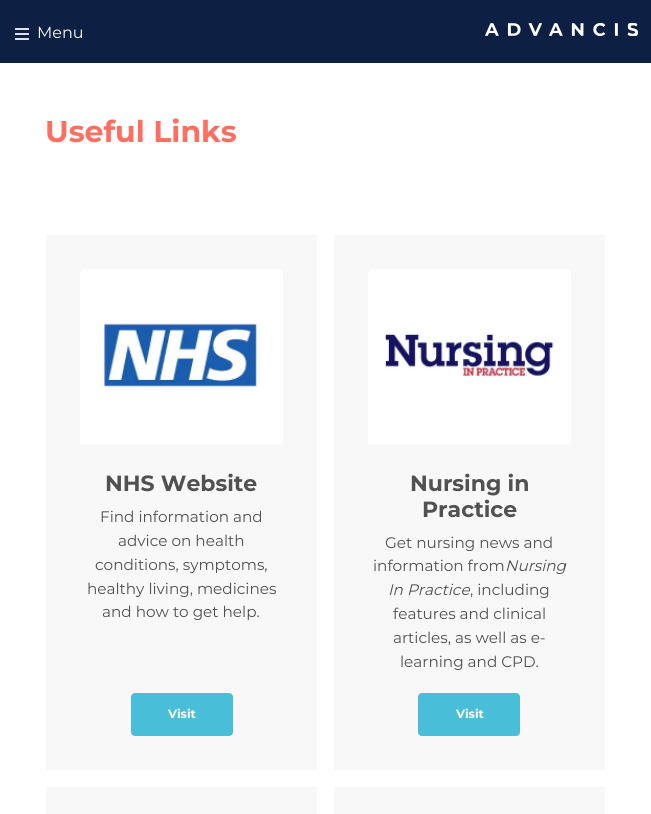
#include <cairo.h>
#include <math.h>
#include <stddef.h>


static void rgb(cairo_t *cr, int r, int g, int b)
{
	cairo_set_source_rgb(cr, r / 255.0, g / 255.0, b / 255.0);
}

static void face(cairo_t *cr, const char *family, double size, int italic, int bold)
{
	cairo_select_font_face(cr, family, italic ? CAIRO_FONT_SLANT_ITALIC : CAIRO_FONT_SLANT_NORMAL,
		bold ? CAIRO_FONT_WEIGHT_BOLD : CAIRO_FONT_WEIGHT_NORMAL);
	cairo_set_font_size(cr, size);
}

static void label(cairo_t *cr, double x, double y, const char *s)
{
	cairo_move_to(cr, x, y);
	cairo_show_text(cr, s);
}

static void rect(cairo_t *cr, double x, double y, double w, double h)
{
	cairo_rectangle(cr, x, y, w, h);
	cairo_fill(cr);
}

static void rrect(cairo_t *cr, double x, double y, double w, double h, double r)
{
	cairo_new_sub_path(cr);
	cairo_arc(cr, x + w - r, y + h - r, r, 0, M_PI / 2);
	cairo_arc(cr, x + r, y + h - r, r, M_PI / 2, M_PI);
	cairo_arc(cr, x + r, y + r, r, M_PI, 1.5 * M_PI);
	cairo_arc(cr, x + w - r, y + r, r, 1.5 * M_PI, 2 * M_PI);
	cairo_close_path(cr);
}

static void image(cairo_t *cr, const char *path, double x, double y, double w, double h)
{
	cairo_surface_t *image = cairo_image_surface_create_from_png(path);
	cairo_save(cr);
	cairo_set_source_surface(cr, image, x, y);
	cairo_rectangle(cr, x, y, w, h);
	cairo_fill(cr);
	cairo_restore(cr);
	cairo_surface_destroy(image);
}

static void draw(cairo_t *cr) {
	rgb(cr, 255, 255, 255);
	cairo_paint(cr);
	rgb(cr, 13, 32, 68);
	rect(cr, 0, 0, 651, 63);
	image(cr, "image0.png", 15, 28, 14, 12);
	face(cr, "Montserrat", 16, 0, 0);
	rgb(cr, 255, 255, 255);
	label(cr, 37, 38, "Menu");
	image(cr, "image1.png", 485, 23, 153, 13);
	face(cr, "Montserrat", 30, 0, 1);
	rgb(cr, 255, 111, 97);
	label(cr, 45, 142, "Useful Links");
	rgb(cr, 248, 248, 248);
	rect(cr, 46, 235, 271, 535);
	image(cr, "image2.png", 80, 269, 203, 176);
	face(cr, "Montserrat", 22, 0, 1);
	rgb(cr, 81, 81, 81);
	label(cr, 105, 491, "NHS Website");
	face(cr, "Montserrat", 15.25, 0, 0);
	label(cr, 100, 522, "Find information and");
	label(cr, 118, 546, "advice on health");
	label(cr, 95, 570, "conditions, symptoms,");
	label(cr, 87, 594, "healthy living, medicines");
	label(cr, 102, 617, "and how to get help.");
	rgb(cr, 72, 190, 216);
	rrect(cr, 131, 693, 102, 43, 4);
	cairo_fill(cr);
	face(cr, "Montserrat", 12, 0, 1);
	rgb(cr, 255, 255, 255);
	label(cr, 168, 718, "Visit");
	rgb(cr, 248, 248, 248);
	rect(cr, 334, 235, 271, 535);
	image(cr, "image3.png", 368, 269, 203, 176);
	face(cr, "Montserrat", 22, 0, 1);
	rgb(cr, 81, 81, 81);
	label(cr, 410, 491, "Nursing in");
	label(cr, 422, 517, "Practice");
	face(cr, "Montserrat", 15.25, 0, 0);
	label(cr, 385, 548, "Get nursing news and");
	label(cr, 373, 571, "information from");
	face(cr, "Montserrat", 15.25, 1, 0);
	label(cr, 505, 571, "Nursing");
	label(cr, 388, 595, "In Practice");
	face(cr, "Montserrat", 15.25, 0, 0);
	label(cr, 470, 595, ", including");
	label(cr, 393, 619, "features and clinical");
	label(cr, 393, 643, "articles, as well as e-");
	label(cr, 400, 667, "learning and CPD.");
	rgb(cr, 72, 190, 216);
	rrect(cr, 418, 693, 102, 43, 4);
	cairo_fill(cr);
	face(cr, "Montserrat", 12, 0, 1);
	rgb(cr, 255, 255, 255);
	label(cr, 456, 718, "Visit");
	rgb(cr, 248, 248, 248);
	rect(cr, 46, 787, 271, 27);
	rect(cr, 334, 787, 271, 27);
}

int main(void) {
	cairo_surface_t *surface = cairo_image_surface_create(CAIRO_FORMAT_RGB24, 651, 814);
	cairo_t *cr = cairo_create(surface);
	cairo_font_options_t *options = cairo_font_options_create();
	cairo_font_options_set_hint_metrics(options, CAIRO_HINT_METRICS_OFF);
	cairo_font_options_set_hint_style(options, CAIRO_HINT_STYLE_NONE);
	cairo_set_font_options(cr, options);
	cairo_set_miter_limit(cr, 4);
	draw(cr);
	cairo_surface_write_to_png(surface, "render.png");
	cairo_font_options_destroy(options);
	cairo_destroy(cr);
	cairo_surface_destroy(surface);
	return 0;
}
